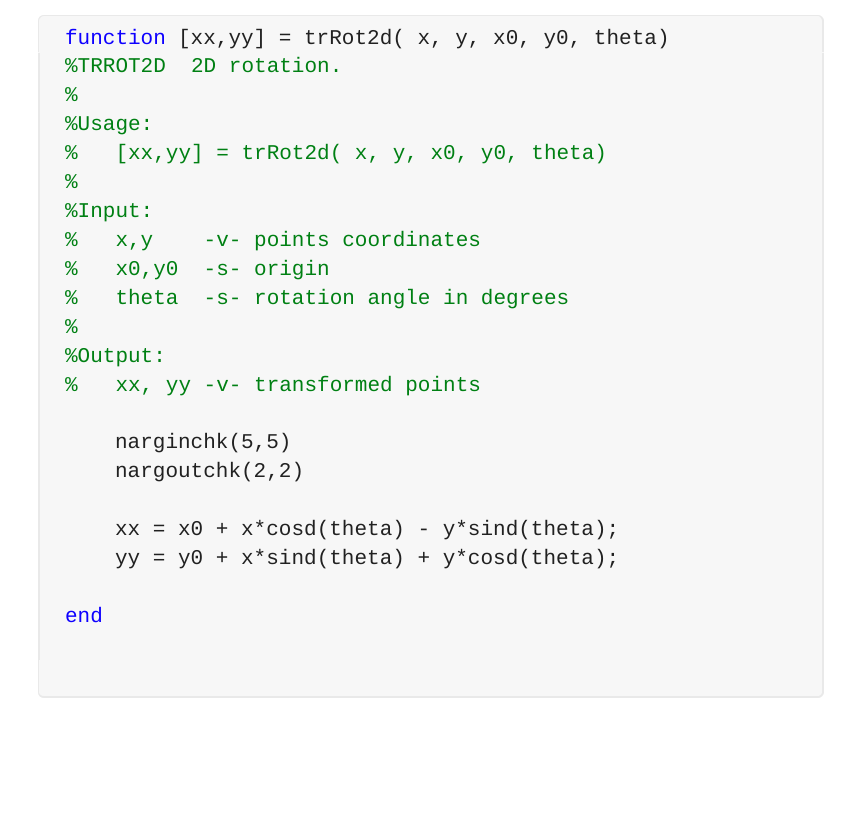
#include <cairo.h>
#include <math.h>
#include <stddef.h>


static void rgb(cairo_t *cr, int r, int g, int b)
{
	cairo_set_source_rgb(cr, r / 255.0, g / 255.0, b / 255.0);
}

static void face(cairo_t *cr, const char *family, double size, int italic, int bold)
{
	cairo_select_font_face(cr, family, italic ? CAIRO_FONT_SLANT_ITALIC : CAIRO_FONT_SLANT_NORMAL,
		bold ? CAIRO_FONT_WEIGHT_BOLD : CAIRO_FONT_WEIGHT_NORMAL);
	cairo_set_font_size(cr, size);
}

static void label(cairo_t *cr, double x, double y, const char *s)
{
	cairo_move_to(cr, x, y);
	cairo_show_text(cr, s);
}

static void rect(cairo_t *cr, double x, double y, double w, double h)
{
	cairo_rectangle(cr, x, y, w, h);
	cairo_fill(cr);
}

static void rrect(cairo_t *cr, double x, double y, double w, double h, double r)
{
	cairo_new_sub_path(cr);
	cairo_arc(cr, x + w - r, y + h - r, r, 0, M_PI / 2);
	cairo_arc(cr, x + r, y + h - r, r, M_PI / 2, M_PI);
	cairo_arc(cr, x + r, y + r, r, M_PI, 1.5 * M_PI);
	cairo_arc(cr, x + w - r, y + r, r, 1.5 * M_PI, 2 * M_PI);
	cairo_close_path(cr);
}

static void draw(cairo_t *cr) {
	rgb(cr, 255, 255, 255);
	cairo_paint(cr);
	rgb(cr, 247, 247, 247);
	rrect(cr, 38, 15, 786, 683, 6);
	cairo_fill(cr);
	rgb(cr, 233, 233, 233);
	cairo_set_fill_rule(cr, CAIRO_FILL_RULE_EVEN_ODD);
	cairo_new_path(cr);
	cairo_move_to(cr, 44, 15);
	cairo_line_to(cr, 818, 15);
	cairo_curve_to(cr, 821, 15, 824, 18, 824, 21);
	cairo_line_to(cr, 824, 52);
	cairo_line_to(cr, 38, 52);
	cairo_line_to(cr, 38, 21);
	cairo_curve_to(cr, 38, 18, 40, 15, 44, 15);
	cairo_close_path(cr);
	cairo_move_to(cr, 44, 16);
	cairo_line_to(cr, 818, 16);
	cairo_curve_to(cr, 820, 16, 822, 19, 822, 21);
	cairo_line_to(cr, 822, 52);
	cairo_line_to(cr, 39, 52);
	cairo_line_to(cr, 39, 21);
	cairo_curve_to(cr, 39, 19, 41, 16, 44, 16);
	cairo_close_path(cr);
	cairo_fill(cr);
	face(cr, "Liberation Mono", 21, 0, 0);
	rgb(cr, 14, 0, 255);
	label(cr, 65, 44, "function");
	rgb(cr, 33, 33, 33);
	label(cr, 178, 44, "[xx,yy] = trRot2d( x, y, x0, y0, theta)");
	rgb(cr, 233, 233, 233);
	rect(cr, 822, 53, 2, 607);
	rect(cr, 38, 53, 2, 607);
	rgb(cr, 0, 128, 19);
	label(cr, 65, 72, "%TRROT2D  2D rotation.");
	label(cr, 65, 101, "%");
	label(cr, 65, 130, "%Usage:");
	label(cr, 65, 159, "%   [xx,yy] = trRot2d( x, y, x0, y0, theta)");
	label(cr, 65, 188, "%");
	label(cr, 65, 217, "%Input:");
	label(cr, 65, 246, "%   x,y    -v- points coordinates");
	label(cr, 65, 275, "%   x0,y0  -s- origin");
	label(cr, 65, 304, "%   theta  -s- rotation angle in degrees");
	label(cr, 65, 333, "%");
	label(cr, 65, 362, "%Output:");
	label(cr, 65, 391, "%   xx, yy -v- transformed points");
	rgb(cr, 33, 33, 33);
	label(cr, 115, 448, "narginchk(5,5)");
	label(cr, 115, 477, "nargoutchk(2,2)");
	label(cr, 115, 535, "xx = x0 + x*cosd(theta) - y*sind(theta);");
	label(cr, 115, 564, "yy = y0 + x*sind(theta) + y*cosd(theta);");
	rgb(cr, 14, 0, 255);
	label(cr, 65, 622, "end");
	rgb(cr, 233, 233, 233);
	cairo_new_path(cr);
	cairo_move_to(cr, 38, 660);
	cairo_line_to(cr, 824, 660);
	cairo_line_to(cr, 824, 692);
	cairo_curve_to(cr, 824, 695, 821, 698, 818, 698);
	cairo_line_to(cr, 44, 698);
	cairo_curve_to(cr, 40, 698, 38, 695, 38, 692);
	cairo_close_path(cr);
	cairo_move_to(cr, 39, 660);
	cairo_line_to(cr, 822, 660);
	cairo_line_to(cr, 822, 692);
	cairo_curve_to(cr, 822, 694, 820, 696, 818, 696);
	cairo_line_to(cr, 44, 696);
	cairo_curve_to(cr, 41, 696, 39, 694, 39, 692);
	cairo_close_path(cr);
	cairo_fill(cr);
}

int main(void) {
	cairo_surface_t *surface = cairo_image_surface_create(CAIRO_FORMAT_RGB24, 842, 830);
	cairo_t *cr = cairo_create(surface);
	cairo_font_options_t *options = cairo_font_options_create();
	cairo_font_options_set_hint_metrics(options, CAIRO_HINT_METRICS_OFF);
	cairo_font_options_set_hint_style(options, CAIRO_HINT_STYLE_NONE);
	cairo_set_font_options(cr, options);
	cairo_set_miter_limit(cr, 4);
	draw(cr);
	cairo_surface_write_to_png(surface, "render.png");
	cairo_font_options_destroy(options);
	cairo_destroy(cr);
	cairo_surface_destroy(surface);
	return 0;
}
